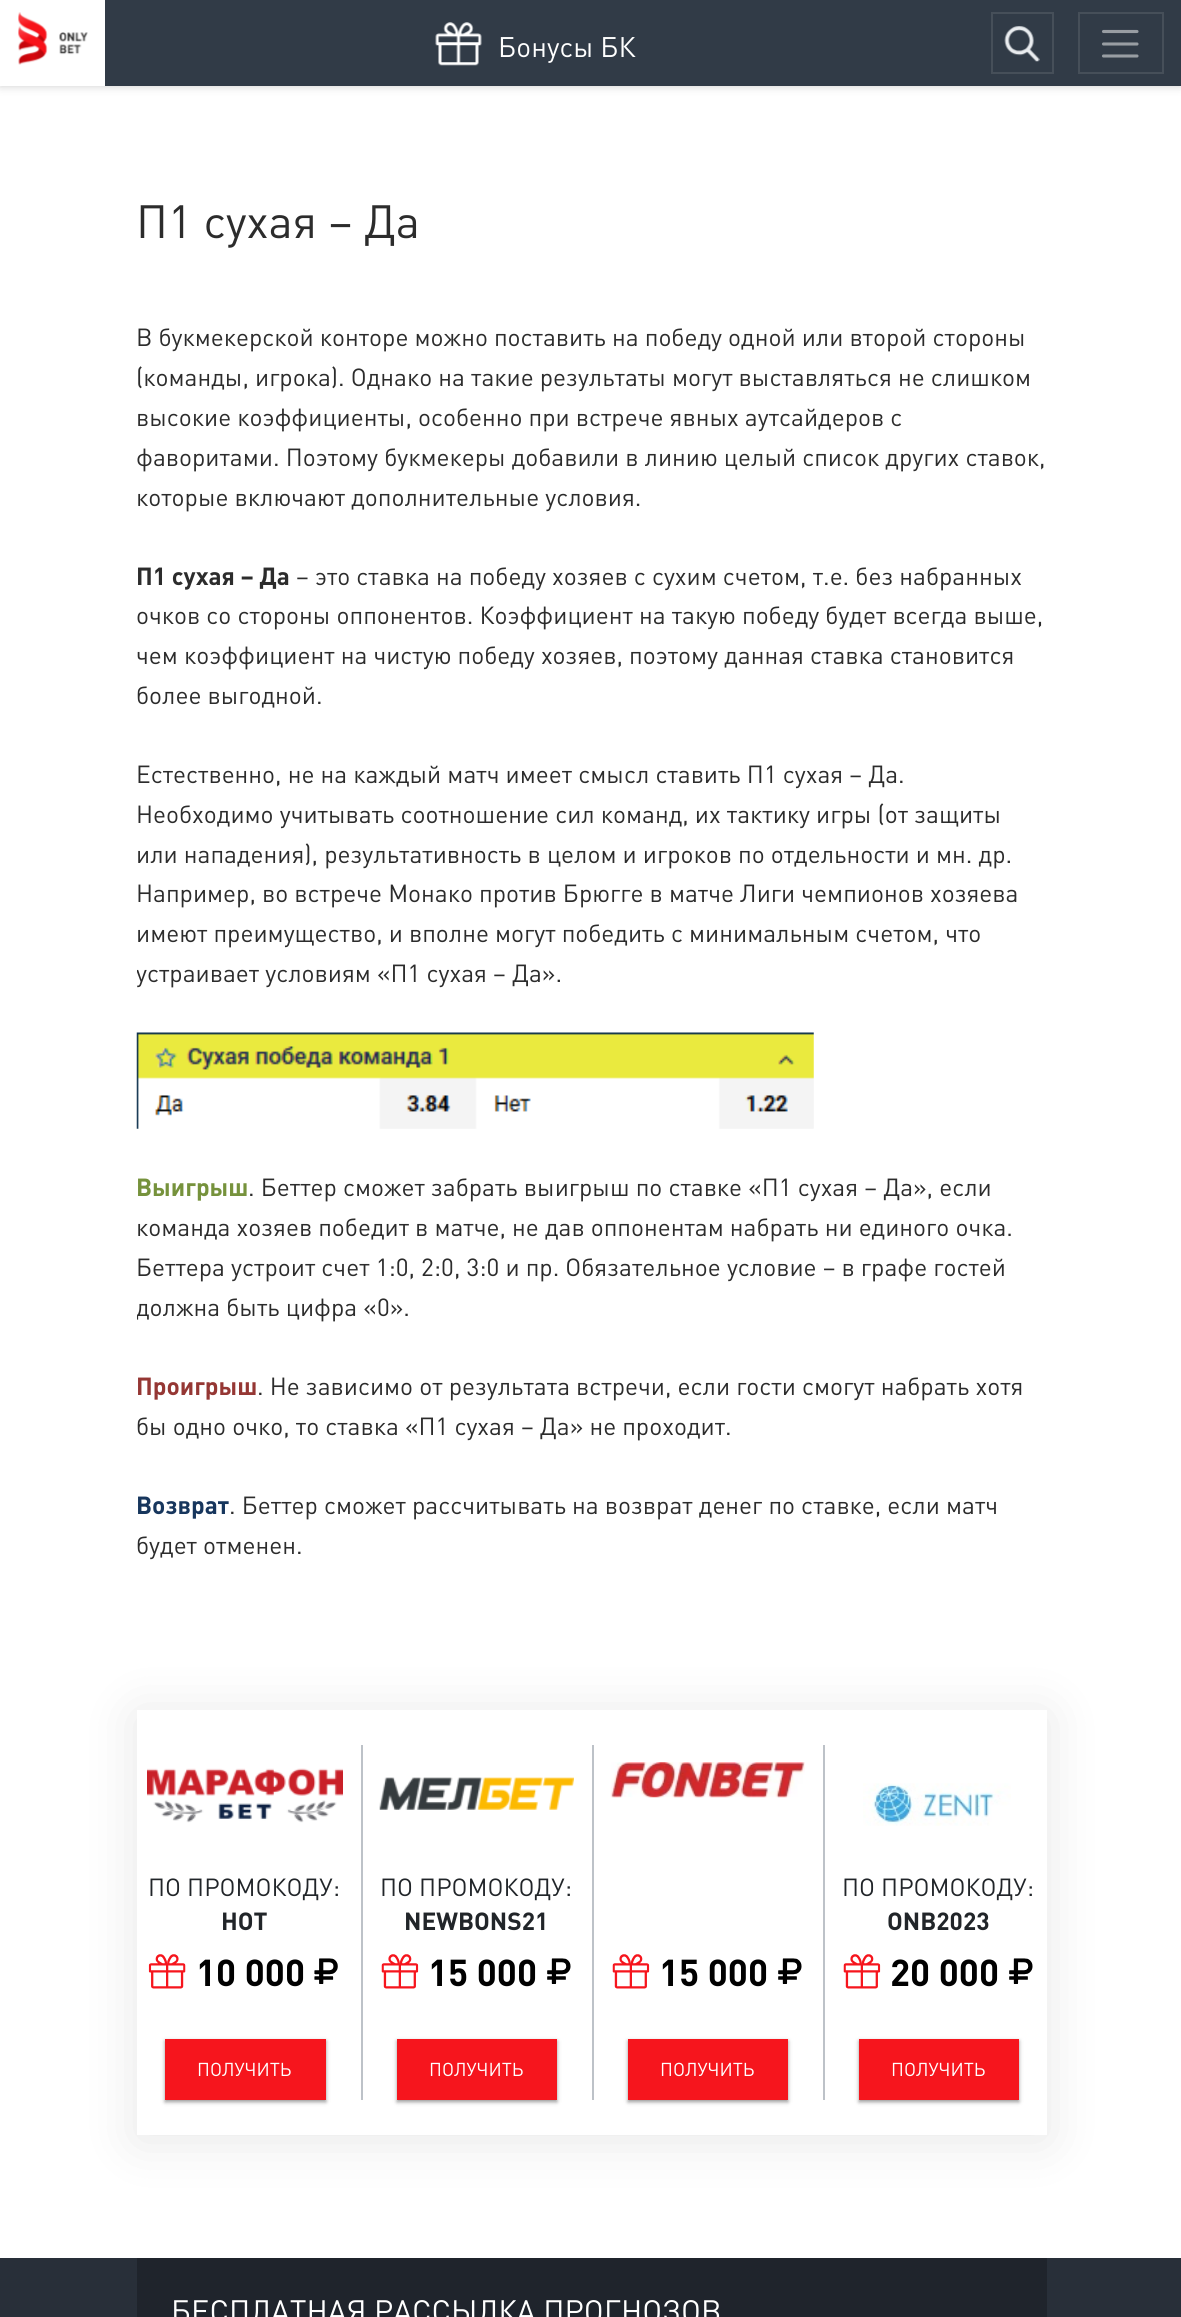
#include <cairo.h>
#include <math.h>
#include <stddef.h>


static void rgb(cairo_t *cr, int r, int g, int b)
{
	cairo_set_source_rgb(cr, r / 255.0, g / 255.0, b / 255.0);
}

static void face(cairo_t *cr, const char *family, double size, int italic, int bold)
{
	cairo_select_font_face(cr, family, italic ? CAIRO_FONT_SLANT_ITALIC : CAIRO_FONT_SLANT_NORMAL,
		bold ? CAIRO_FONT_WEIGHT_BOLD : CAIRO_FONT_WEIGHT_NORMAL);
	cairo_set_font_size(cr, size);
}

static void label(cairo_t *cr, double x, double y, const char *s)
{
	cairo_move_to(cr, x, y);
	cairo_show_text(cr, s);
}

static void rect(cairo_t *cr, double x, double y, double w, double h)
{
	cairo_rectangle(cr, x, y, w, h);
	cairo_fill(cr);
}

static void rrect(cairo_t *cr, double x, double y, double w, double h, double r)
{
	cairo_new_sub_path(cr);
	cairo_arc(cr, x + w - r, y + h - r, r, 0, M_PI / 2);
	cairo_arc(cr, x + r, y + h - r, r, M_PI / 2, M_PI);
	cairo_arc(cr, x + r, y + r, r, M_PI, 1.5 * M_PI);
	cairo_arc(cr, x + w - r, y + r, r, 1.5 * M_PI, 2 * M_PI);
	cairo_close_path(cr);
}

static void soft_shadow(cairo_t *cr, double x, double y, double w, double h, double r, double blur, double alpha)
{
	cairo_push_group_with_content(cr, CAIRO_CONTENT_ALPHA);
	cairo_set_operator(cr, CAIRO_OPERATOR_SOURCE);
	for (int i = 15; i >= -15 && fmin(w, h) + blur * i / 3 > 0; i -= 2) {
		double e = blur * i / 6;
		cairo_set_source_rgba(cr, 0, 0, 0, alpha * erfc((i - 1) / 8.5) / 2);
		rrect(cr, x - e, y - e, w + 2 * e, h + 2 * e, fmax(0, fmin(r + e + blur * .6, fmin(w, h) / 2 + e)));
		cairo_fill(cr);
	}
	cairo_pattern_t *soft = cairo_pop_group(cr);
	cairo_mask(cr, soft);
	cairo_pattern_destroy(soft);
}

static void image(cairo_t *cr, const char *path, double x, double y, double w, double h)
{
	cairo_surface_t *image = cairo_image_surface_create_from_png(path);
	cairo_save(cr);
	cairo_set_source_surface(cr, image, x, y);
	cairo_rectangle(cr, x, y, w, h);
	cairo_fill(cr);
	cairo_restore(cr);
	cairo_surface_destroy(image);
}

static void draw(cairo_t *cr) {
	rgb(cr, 255, 255, 255);
	cairo_paint(cr);
	rgb(cr, 0, 0, 0);
	soft_shadow(cr, 0, 0, 1181, 86, 0, 4.5, 0.2);
	rgb(cr, 49, 59, 71);
	rect(cr, 105, 0, 1076, 86);
	rgb(cr, 255, 255, 255);
	rect(cr, 0, 0, 105, 86);
	image(cr, "image0.png", 18, 12, 70, 53);
	image(cr, "image1.png", 435, 22, 47, 44);
	face(cr, "DIN", 28, 0, 0);
	label(cr, 498, 57, "Бонусы БК");
	cairo_rectangle(cr, 992, 13, 61, 60);
	rgb(cr, 70, 79, 89);
	cairo_stroke(cr);
	image(cr, "image2.png", 1004, 26, 36, 36);
	cairo_rectangle(cr, 1079, 13, 84, 60);
	cairo_stroke(cr);
	cairo_new_path(cr);
	cairo_move_to(cr, 1103.5, 31.5);
	cairo_line_to(cr, 1137, 31.5);
	cairo_move_to(cr, 1103.5, 44);
	cairo_line_to(cr, 1137, 44);
	cairo_move_to(cr, 1103.5, 56);
	cairo_line_to(cr, 1137, 56);
	rgb(cr, 152, 157, 163);
	cairo_set_line_width(cr, 3.1);
	cairo_set_line_cap(cr, CAIRO_LINE_CAP_ROUND);
	cairo_stroke(cr);
	face(cr, "DIN", 46, 0, 0);
	rgb(cr, 44, 44, 44);
	label(cr, 136, 238, "П1 сухая – Да");
	face(cr, "DIN", 24.5, 0, 0);
	label(cr, 136, 346, "В букмекерской конторе можно поставить на победу одной или второй стороны");
	label(cr, 136, 386, "(команды, игрока). Однако на такие результаты могут выставляться не слишком");
	label(cr, 136, 426, "высокие коэффициенты, особенно при встрече явных аутсайдеров с");
	label(cr, 136, 466, "фаворитами. Поэтому букмекеры добавили в линию целый список других ставок,");
	label(cr, 136, 506, "которые включают дополнительные условия.");
	face(cr, "DIN", 24.5, 0, 1);
	label(cr, 136, 585, "П1 сухая – Да");
	face(cr, "DIN", 24.5, 0, 0);
	label(cr, 296, 585, "– это ставка на победу хозяев с сухим счетом, т.е. без набранных");
	label(cr, 136, 624, "очков со стороны оппонентов. Коэффициент на такую победу будет всегда выше,");
	label(cr, 136, 664, "чем коэффициент на чистую победу хозяев, поэтому данная ставка становится");
	label(cr, 136, 704, "более выгодной.");
	label(cr, 136, 783, "Естественно, не на каждый матч имеет смысл ставить П1 сухая – Да.");
	label(cr, 136, 823, "Необходимо учитывать соотношение сил команд, их тактику игры (от защиты");
	label(cr, 136, 863, "или нападения), результативность в целом и игроков по отдельности и мн. др.");
	label(cr, 136, 902, "Например, во встрече Монако против Брюгге в матче Лиги чемпионов хозяева");
	label(cr, 136, 942, "имеют преимущество, и вполне могут победить с минимальным счетом, что");
	cairo_save(cr);
	cairo_rectangle(cr, 137, 319, 910, 1286);
	cairo_clip(cr);
	label(cr, 136, 982, "устраивает условиям «П1 сухая – Да».");
	cairo_restore(cr);
	image(cr, "image3.png", 136, 1032, 678, 97);
	face(cr, "DIN", 24.5, 0, 1);
	rgb(cr, 118, 146, 60);
	label(cr, 136, 1196, "Выигрыш");
	face(cr, "DIN", 24.5, 0, 0);
	rgb(cr, 44, 44, 44);
	label(cr, 248, 1196, ". Беттер сможет забрать выигрыш по ставке «П1 сухая – Да», если");
	label(cr, 136, 1236, "команда хозяев победит в матче, не дав оппонентам набрать ни единого очка.");
	label(cr, 136, 1276, "Беттера устроит счет 1:0, 2:0, 3:0 и пр. Обязательное условие – в графе гостей");
	cairo_save(cr);
	cairo_rectangle(cr, 137, 319, 910, 1286);
	cairo_clip(cr);
	label(cr, 136, 1316, "должна быть цифра «0».");
	cairo_restore(cr);
	face(cr, "DIN", 24.5, 0, 1);
	rgb(cr, 149, 55, 52);
	label(cr, 136, 1395, "Проигрыш");
	face(cr, "DIN", 24.5, 0, 0);
	rgb(cr, 44, 44, 44);
	label(cr, 257, 1395, ". Не зависимо от результата встречи, если гости смогут набрать хотя");
	label(cr, 136, 1435, "бы одно очко, то ставка «П1 сухая – Да» не проходит.");
	face(cr, "DIN", 24.5, 0, 1);
	rgb(cr, 23, 54, 93);
	label(cr, 136, 1514, "Возврат");
	face(cr, "DIN", 24.5, 0, 0);
	rgb(cr, 44, 44, 44);
	label(cr, 229, 1514, ". Беттер сможет рассчитывать на возврат денег по ставке, если матч");
	label(cr, 136, 1554, "будет отменен.");
	rgb(cr, 0, 0, 0);
	soft_shadow(cr, 137, 1715, 910, 425, 0, 26, 0.1);
	rgb(cr, 255, 255, 255);
	rect(cr, 137, 1710, 910, 425);
	image(cr, "image4.png", 147, 1768, 196, 55);
	rgb(cr, 33, 37, 41);
	label(cr, 148, 1896, "ПО ПРОМОКОДУ:");
	face(cr, "DIN", 24.5, 0, 1);
	label(cr, 221, 1930, "HOT");
	image(cr, "image5.png", 148, 1954, 38, 35);
	face(cr, "DIN", 37, 0, 1);
	rgb(cr, 0, 0, 0);
	label(cr, 196, 1986, "10 000");
	image(cr, "image6.png", 314, 1958, 24, 26);
	rgb(cr, 0, 0, 0);
	soft_shadow(cr, 165, 2041, 161, 61, 0, 2, 0.4);
	rgb(cr, 246, 21, 29);
	rect(cr, 165, 2039, 161, 61);
	face(cr, "DIN", 18.5, 0, 0);
	rgb(cr, 255, 255, 255);
	label(cr, 197, 2076, "ПОЛУЧИТЬ");
	rgb(cr, 189, 194, 200);
	rect(cr, 361, 1745, 2, 355);
	image(cr, "image7.png", 379, 1777, 195, 33);
	face(cr, "DIN", 24.5, 0, 0);
	rgb(cr, 33, 37, 41);
	label(cr, 380, 1896, "ПО ПРОМОКОДУ:");
	face(cr, "DIN", 24.5, 0, 1);
	label(cr, 404, 1930, "NEWBONS21");
	image(cr, "image8.png", 381, 1954, 38, 35);
	face(cr, "DIN", 37, 0, 1);
	rgb(cr, 0, 0, 0);
	label(cr, 428, 1986, "15 000");
	image(cr, "image9.png", 547, 1958, 24, 26);
	rgb(cr, 0, 0, 0);
	soft_shadow(cr, 397, 2041, 160, 61, 0, 2, 0.4);
	rgb(cr, 246, 21, 29);
	rect(cr, 397, 2039, 160, 61);
	face(cr, "DIN", 18.5, 0, 0);
	rgb(cr, 255, 255, 255);
	label(cr, 429, 2076, "ПОЛУЧИТЬ");
	rgb(cr, 189, 194, 200);
	rect(cr, 592, 1745, 2, 355);
	image(cr, "image10.png", 610, 1762, 195, 36);
	image(cr, "image8.png", 612, 1954, 38, 35);
	face(cr, "DIN", 37, 0, 1);
	rgb(cr, 0, 0, 0);
	label(cr, 659, 1986, "15 000");
	image(cr, "image11.png", 778, 1958, 24, 26);
	rgb(cr, 0, 0, 0);
	soft_shadow(cr, 628, 2041, 160, 61, 0, 2, 0.4);
	rgb(cr, 246, 21, 29);
	rect(cr, 628, 2039, 160, 61);
	face(cr, "DIN", 18.5, 0, 0);
	rgb(cr, 255, 255, 255);
	label(cr, 660, 2076, "ПОЛУЧИТЬ");
	rgb(cr, 189, 194, 200);
	rect(cr, 823, 1745, 2, 355);
	image(cr, "image12.png", 863, 1783, 148, 43);
	face(cr, "DIN", 24.5, 0, 0);
	rgb(cr, 33, 37, 41);
	label(cr, 842, 1896, "ПО ПРОМОКОДУ:");
	face(cr, "DIN", 24.5, 0, 1);
	label(cr, 887, 1930, "ONB2023");
	image(cr, "image8.png", 843, 1954, 38, 35);
	face(cr, "DIN", 37, 0, 1);
	rgb(cr, 0, 0, 0);
	label(cr, 890, 1986, "20 000");
	image(cr, "image13.png", 1009, 1958, 24, 26);
	rgb(cr, 0, 0, 0);
	soft_shadow(cr, 859, 2041, 160, 61, 0, 2, 0.4);
	rgb(cr, 246, 21, 29);
	rect(cr, 859, 2039, 160, 61);
	face(cr, "DIN", 18.5, 0, 0);
	rgb(cr, 255, 255, 255);
	label(cr, 891, 2076, "ПОЛУЧИТЬ");
	rgb(cr, 40, 47, 57);
	rect(cr, 0, 2258, 1181, 59);
	rgb(cr, 31, 36, 44);
	rect(cr, 137, 2258, 910, 59);
	face(cr, "DIN", 30.6, 0, 0);
	rgb(cr, 255, 255, 255);
	label(cr, 171, 2322, "БЕСПЛАТНАЯ РАССЫЛКА ПРОГНОЗОВ");
}

int main(void) {
	cairo_surface_t *surface = cairo_image_surface_create(CAIRO_FORMAT_RGB24, 1181, 2317);
	cairo_t *cr = cairo_create(surface);
	cairo_font_options_t *options = cairo_font_options_create();
	cairo_font_options_set_hint_metrics(options, CAIRO_HINT_METRICS_OFF);
	cairo_font_options_set_hint_style(options, CAIRO_HINT_STYLE_NONE);
	cairo_set_font_options(cr, options);
	cairo_set_miter_limit(cr, 4);
	draw(cr);
	cairo_surface_write_to_png(surface, "render.png");
	cairo_font_options_destroy(options);
	cairo_destroy(cr);
	cairo_surface_destroy(surface);
	return 0;
}
